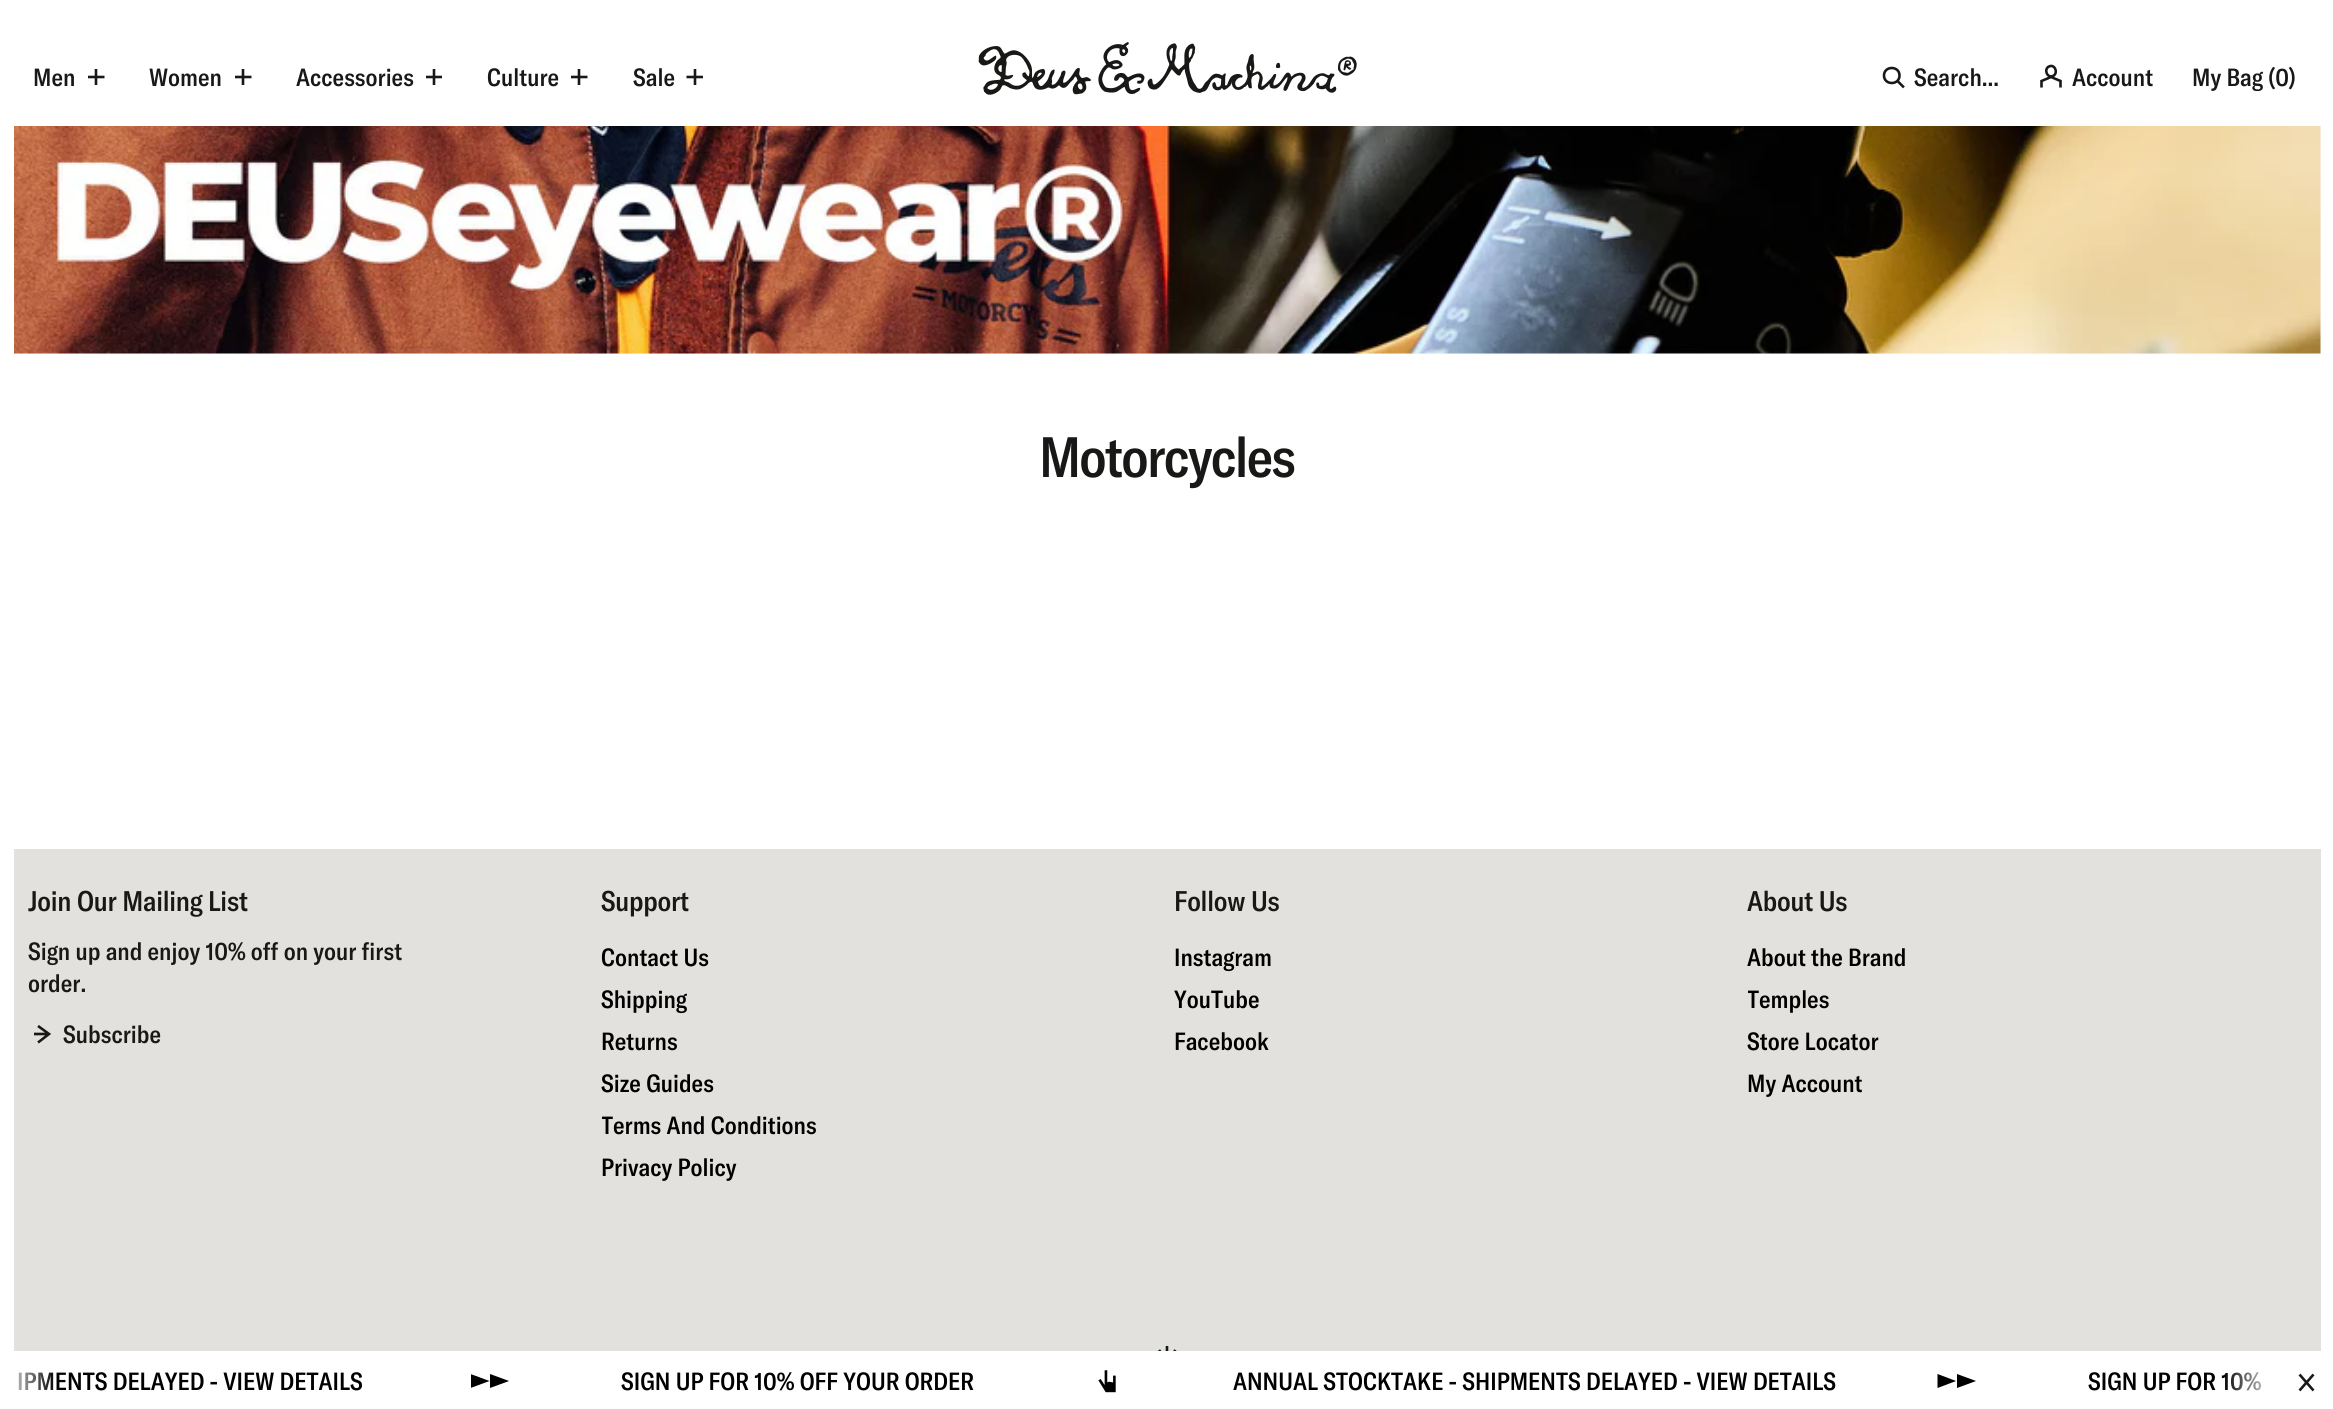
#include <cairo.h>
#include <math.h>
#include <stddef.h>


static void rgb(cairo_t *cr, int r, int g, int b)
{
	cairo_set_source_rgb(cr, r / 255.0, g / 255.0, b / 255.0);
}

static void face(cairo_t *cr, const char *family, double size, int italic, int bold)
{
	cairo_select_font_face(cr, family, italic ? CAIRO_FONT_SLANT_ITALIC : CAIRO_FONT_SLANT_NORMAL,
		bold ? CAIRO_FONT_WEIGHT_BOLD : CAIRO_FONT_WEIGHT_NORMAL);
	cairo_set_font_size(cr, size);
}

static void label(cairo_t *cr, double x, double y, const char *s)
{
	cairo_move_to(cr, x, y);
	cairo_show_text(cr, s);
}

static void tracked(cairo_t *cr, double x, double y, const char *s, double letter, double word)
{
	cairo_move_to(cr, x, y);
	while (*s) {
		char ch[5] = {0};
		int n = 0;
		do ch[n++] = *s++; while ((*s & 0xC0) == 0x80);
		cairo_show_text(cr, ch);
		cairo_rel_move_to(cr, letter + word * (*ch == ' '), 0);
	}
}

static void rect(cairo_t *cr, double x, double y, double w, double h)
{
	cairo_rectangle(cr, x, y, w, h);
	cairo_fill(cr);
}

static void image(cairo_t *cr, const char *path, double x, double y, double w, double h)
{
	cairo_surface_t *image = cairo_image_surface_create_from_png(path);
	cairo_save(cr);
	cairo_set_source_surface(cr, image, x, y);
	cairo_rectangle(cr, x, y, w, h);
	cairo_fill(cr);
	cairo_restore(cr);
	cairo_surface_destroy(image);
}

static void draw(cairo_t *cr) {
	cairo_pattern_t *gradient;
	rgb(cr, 255, 255, 255);
	cairo_paint(cr);
	face(cr, "GT America Medium", 24.5, 0, 0);
	rgb(cr, 24, 24, 23);
	label(cr, 33, 86, "Men");
	cairo_new_path(cr);
	cairo_move_to(cr, 96, 69);
	cairo_line_to(cr, 96, 85);
	cairo_move_to(cr, 88, 77);
	cairo_line_to(cr, 104.5, 77);
	cairo_set_line_width(cr, 2.6);
	cairo_stroke(cr);
	label(cr, 149, 86, "Women");
	cairo_new_path(cr);
	cairo_move_to(cr, 243, 69);
	cairo_line_to(cr, 243, 85);
	cairo_move_to(cr, 235, 77);
	cairo_line_to(cr, 251.5, 77);
	cairo_stroke(cr);
	label(cr, 296, 86, "Accessories");
	cairo_new_path(cr);
	cairo_move_to(cr, 434, 69);
	cairo_line_to(cr, 434, 85);
	cairo_move_to(cr, 426, 77);
	cairo_line_to(cr, 442, 77);
	cairo_stroke(cr);
	label(cr, 487, 86, "Culture");
	cairo_new_path(cr);
	cairo_move_to(cr, 579, 69);
	cairo_line_to(cr, 579, 85);
	cairo_move_to(cr, 571, 77);
	cairo_line_to(cr, 587.5, 77);
	cairo_stroke(cr);
	label(cr, 633, 86, "Sale");
	cairo_new_path(cr);
	cairo_move_to(cr, 695, 69);
	cairo_line_to(cr, 695, 85);
	cairo_move_to(cr, 686.5, 77);
	cairo_line_to(cr, 703, 77);
	cairo_stroke(cr);
	image(cr, "image0.png", 978, 42, 379, 53);
	cairo_new_path(cr);
	cairo_move_to(cr, 1903, 86.5);
	cairo_line_to(cr, 1898, 81.5);
	cairo_move_to(cr, 1899.5, 75.5);
	cairo_curve_to(cr, 1899.5, 85.5, 1884, 85.5, 1884, 75.5);
	cairo_curve_to(cr, 1884, 65.5, 1899.5, 65.5, 1899.5, 75.5);
	cairo_close_path(cr);
	cairo_set_line_cap(cr, CAIRO_LINE_CAP_SQUARE);
	cairo_stroke(cr);
	label(cr, 1914, 86, "Search...");
	cairo_new_path(cr);
	cairo_move_to(cr, 2041.5, 87.5);
	cairo_line_to(cr, 2041.5, 81);
	cairo_line_to(cr, 2051, 77);
	cairo_line_to(cr, 2060.5, 81);
	cairo_line_to(cr, 2060.5, 87.5);
	cairo_move_to(cr, 2049, 66.5);
	cairo_curve_to(cr, 2055, 63.5, 2058.5, 73.5, 2053, 76);
	cairo_curve_to(cr, 2047, 78.5, 2043.5, 69, 2049, 66.5);
	cairo_close_path(cr);
	cairo_set_line_cap(cr, CAIRO_LINE_CAP_BUTT);
	cairo_stroke(cr);
	label(cr, 2072, 86, "Account");
	label(cr, 2192, 86, "My Bag (0)");
	rgb(cr, 250, 249, 247);
	rect(cr, 14, 126, 2307, 228);
	image(cr, "image1.png", 14, 126, 2307, 228);
	face(cr, "GT America Medium", 56, 0, 0);
	rgb(cr, 24, 24, 23);
	tracked(cr, 1039, 477, "Motorcycles", -1.75, 0);
	rgb(cr, 226, 225, 221);
	rect(cr, 14, 849, 2307, 502);
	face(cr, "GT America Medium", 28, 0, 0);
	rgb(cr, 24, 24, 23);
	tracked(cr, 28, 911, "Join Our Mailing List", -0.25, 0);
	face(cr, "GT America Medium", 24.5, 0, 0);
	label(cr, 28, 960, "Sign up and enjoy 10% off on your first");
	label(cr, 28, 992, "order.");
	cairo_new_path(cr);
	cairo_move_to(cr, 38, 1042.5);
	cairo_line_to(cr, 49, 1034);
	cairo_line_to(cr, 38, 1026);
	cairo_move_to(cr, 34, 1034);
	cairo_line_to(cr, 49, 1034);
	cairo_stroke(cr);
	label(cr, 63, 1043, "Subscribe");
	face(cr, "GT America Medium", 28, 0, 0);
	tracked(cr, 601, 911, "Support", -0.25, 0);
	face(cr, "GT America Medium", 24.5, 0, 0);
	rgb(cr, 0, 0, 0);
	label(cr, 601, 966, "Contact Us");
	label(cr, 601, 1008, "Shipping");
	label(cr, 601, 1050, "Returns");
	label(cr, 601, 1092, "Size Guides");
	cairo_save(cr);
	cairo_rectangle(cr, 602, 936, 558, 263);
	cairo_clip(cr);
	label(cr, 601, 1134, "Terms And Conditions");
	cairo_restore(cr);
	label(cr, 601, 1176, "Privacy Policy");
	face(cr, "GT America Medium", 28, 0, 0);
	rgb(cr, 24, 24, 23);
	tracked(cr, 1174, 911, "Follow Us", -0.25, 0);
	face(cr, "GT America Medium", 24.5, 0, 0);
	rgb(cr, 0, 0, 0);
	label(cr, 1174, 966, "Instagram");
	label(cr, 1174, 1008, "YouTube");
	label(cr, 1174, 1050, "Facebook");
	face(cr, "GT America Medium", 28, 0, 0);
	rgb(cr, 24, 24, 23);
	tracked(cr, 1747, 911, "About Us", -0.25, 0);
	face(cr, "GT America Medium", 24.5, 0, 0);
	rgb(cr, 0, 0, 0);
	label(cr, 1747, 966, "About the Brand");
	cairo_save(cr);
	cairo_rectangle(cr, 1748, 936, 559, 179);
	cairo_clip(cr);
	label(cr, 1747, 1008, "Temples");
	cairo_restore(cr);
	label(cr, 1747, 1050, "Store Locator");
	label(cr, 1747, 1092, "My Account");
	cairo_new_path(cr);
	cairo_move_to(cr, 1159, 1350);
	cairo_line_to(cr, 1167, 1361);
	cairo_line_to(cr, 1175.5, 1350);
	cairo_move_to(cr, 1167, 1346);
	cairo_line_to(cr, 1167, 1361);
	rgb(cr, 24, 24, 23);
	cairo_stroke(cr);
	rgb(cr, 255, 255, 255);
	rect(cr, 1158, 1351, 19, 13);
	rgb(cr, 0, 0, 0);
	label(cr, 17, 1390, "IPMENTS DELAYED - VIEW DETAILS");
	cairo_save(cr);
	cairo_rectangle(cr, 471, 1367, 38, 28);
	cairo_clip(cr);
	cairo_new_path(cr);
	cairo_move_to(cr, 489.5, 1381);
	cairo_line_to(cr, 470.5, 1388);
	cairo_line_to(cr, 470.5, 1374);
	cairo_close_path(cr);
	cairo_fill(cr);
	cairo_restore(cr);
	cairo_new_path(cr);
	cairo_move_to(cr, 509, 1381);
	cairo_line_to(cr, 490, 1388);
	cairo_line_to(cr, 490, 1374);
	cairo_close_path(cr);
	cairo_fill(cr);
	label(cr, 621, 1390, "SIGN UP FOR 10% OFF YOUR ORDER");
	image(cr, "image2.png", 1098, 1370, 18, 23);
	label(cr, 1233, 1390, "ANNUAL STOCKTAKE - SHIPMENTS DELAYED - VIEW DETAILS");
	cairo_new_path(cr);
	cairo_move_to(cr, 1956, 1381);
	cairo_line_to(cr, 1937.5, 1388);
	cairo_line_to(cr, 1937.5, 1374);
	cairo_close_path(cr);
	cairo_move_to(cr, 1976, 1381);
	cairo_line_to(cr, 1957, 1388);
	cairo_line_to(cr, 1957, 1374);
	cairo_close_path(cr);
	cairo_fill(cr);
	label(cr, 2088, 1390, "SIGN UP FOR 10%");
	gradient = cairo_pattern_create_linear(0, 1381, 56, 1381);
	cairo_pattern_add_color_stop_rgba(gradient, 0, 1, 1, 1, 1);
	cairo_pattern_add_color_stop_rgba(gradient, 1, 1, 1, 1, 0);
	cairo_set_source(cr, gradient);
	cairo_pattern_destroy(gradient);
	rect(cr, 18, 1372, 35, 18);
	gradient = cairo_pattern_create_linear(2279, 1381, 2223, 1381);
	cairo_pattern_add_color_stop_rgba(gradient, 0, 1, 1, 1, 1);
	cairo_pattern_add_color_stop_rgba(gradient, 1, 1, 1, 1, 0);
	cairo_set_source(cr, gradient);
	cairo_pattern_destroy(gradient);
	rect(cr, 2224, 1372, 37, 19);
	cairo_new_path(cr);
	cairo_move_to(cr, 2313.5, 1390.5);
	cairo_line_to(cr, 2306.5, 1382.5);
	cairo_move_to(cr, 2306.5, 1382.5);
	cairo_line_to(cr, 2299.5, 1374.5);
	cairo_move_to(cr, 2306.5, 1382.5);
	cairo_line_to(cr, 2313.5, 1374.5);
	cairo_move_to(cr, 2306.5, 1382.5);
	cairo_line_to(cr, 2299.5, 1390.5);
	rgb(cr, 24, 24, 23);
	cairo_stroke(cr);
}

int main(void) {
	cairo_surface_t *surface = cairo_image_surface_create(CAIRO_FORMAT_RGB24, 2333, 1409);
	cairo_t *cr = cairo_create(surface);
	cairo_font_options_t *options = cairo_font_options_create();
	cairo_font_options_set_hint_metrics(options, CAIRO_HINT_METRICS_OFF);
	cairo_font_options_set_hint_style(options, CAIRO_HINT_STYLE_NONE);
	cairo_set_font_options(cr, options);
	cairo_set_miter_limit(cr, 4);
	draw(cr);
	cairo_surface_write_to_png(surface, "render.png");
	cairo_font_options_destroy(options);
	cairo_destroy(cr);
	cairo_surface_destroy(surface);
	return 0;
}
